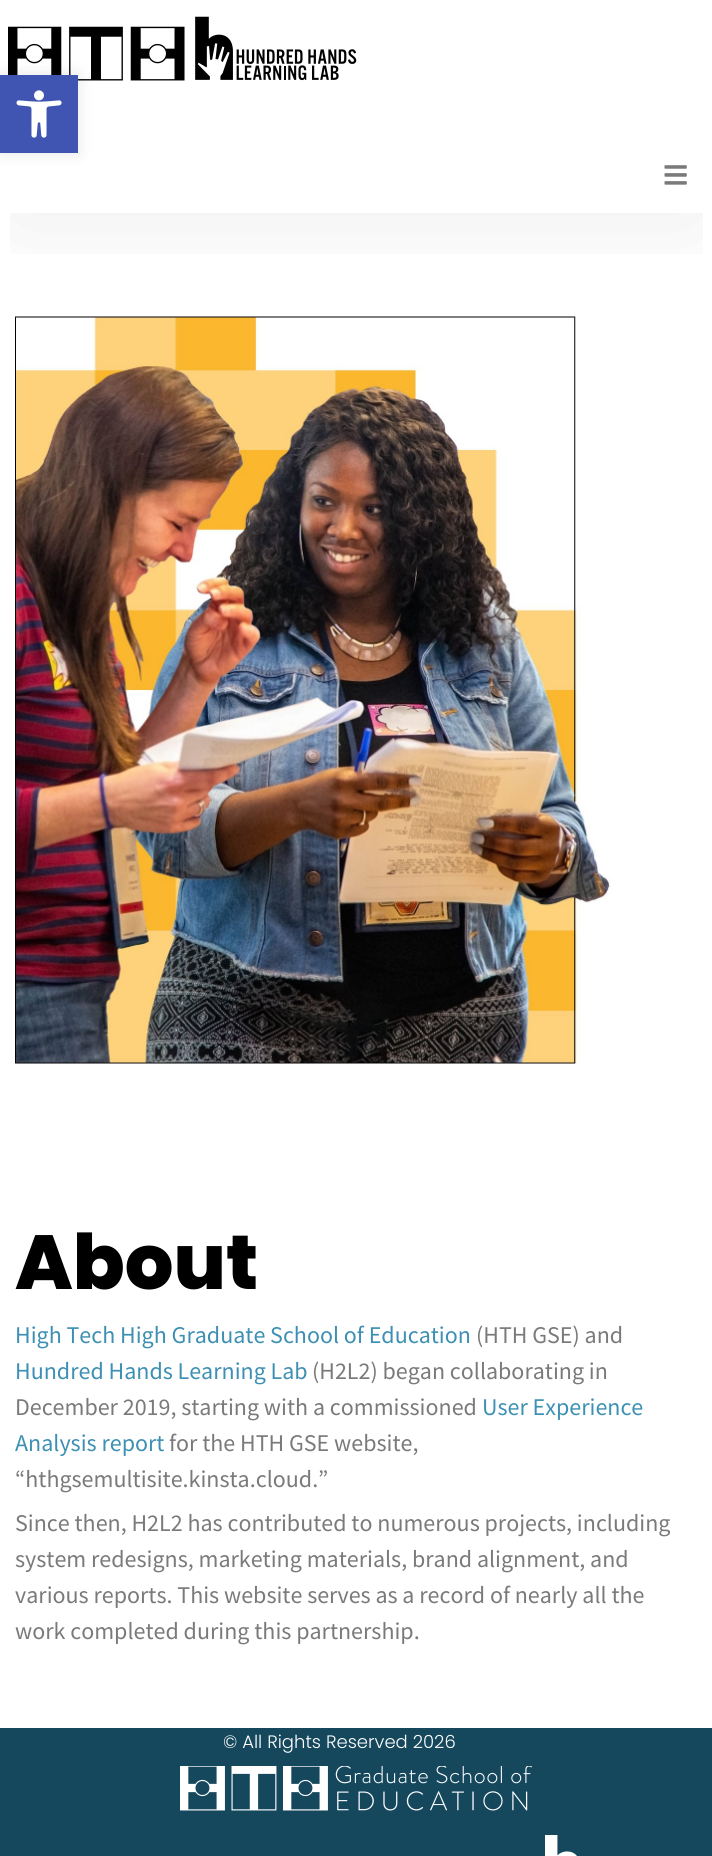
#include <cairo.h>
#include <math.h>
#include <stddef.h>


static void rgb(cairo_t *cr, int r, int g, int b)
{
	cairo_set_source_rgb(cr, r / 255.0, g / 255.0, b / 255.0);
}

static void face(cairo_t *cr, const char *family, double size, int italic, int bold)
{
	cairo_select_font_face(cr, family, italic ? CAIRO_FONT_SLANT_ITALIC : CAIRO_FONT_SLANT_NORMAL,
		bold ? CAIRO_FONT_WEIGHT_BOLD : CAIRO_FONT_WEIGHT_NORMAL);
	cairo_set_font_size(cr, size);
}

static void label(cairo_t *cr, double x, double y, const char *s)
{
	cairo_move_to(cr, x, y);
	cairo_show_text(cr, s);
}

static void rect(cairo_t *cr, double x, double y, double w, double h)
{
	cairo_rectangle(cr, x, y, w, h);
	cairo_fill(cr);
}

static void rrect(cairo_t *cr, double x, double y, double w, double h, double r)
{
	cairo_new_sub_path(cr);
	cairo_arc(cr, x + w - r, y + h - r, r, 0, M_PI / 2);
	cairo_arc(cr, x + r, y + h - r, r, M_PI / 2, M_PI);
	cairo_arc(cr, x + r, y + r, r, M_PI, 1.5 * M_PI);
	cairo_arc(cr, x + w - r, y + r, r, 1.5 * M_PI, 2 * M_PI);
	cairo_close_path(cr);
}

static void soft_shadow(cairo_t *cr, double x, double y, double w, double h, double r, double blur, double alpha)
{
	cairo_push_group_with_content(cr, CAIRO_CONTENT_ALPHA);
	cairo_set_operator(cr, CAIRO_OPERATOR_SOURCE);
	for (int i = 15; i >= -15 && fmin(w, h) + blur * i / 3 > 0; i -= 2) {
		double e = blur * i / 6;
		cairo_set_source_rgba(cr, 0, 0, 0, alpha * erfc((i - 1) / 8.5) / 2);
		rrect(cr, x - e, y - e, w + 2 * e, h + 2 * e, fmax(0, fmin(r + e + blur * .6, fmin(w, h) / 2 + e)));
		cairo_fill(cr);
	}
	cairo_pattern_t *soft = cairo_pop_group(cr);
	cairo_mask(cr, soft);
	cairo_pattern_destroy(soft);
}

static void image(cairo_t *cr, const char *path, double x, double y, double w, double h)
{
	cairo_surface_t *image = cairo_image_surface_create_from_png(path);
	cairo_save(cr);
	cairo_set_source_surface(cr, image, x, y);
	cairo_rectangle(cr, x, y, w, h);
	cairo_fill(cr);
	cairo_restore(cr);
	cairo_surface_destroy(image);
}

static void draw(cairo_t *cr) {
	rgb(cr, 255, 255, 255);
	cairo_paint(cr);
	image(cr, "image3.png", 15, 316, 597, 748);
	cairo_save(cr);
	cairo_rectangle(cr, 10, 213, 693, 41);
	cairo_clip(cr);
	rgb(cr, 0, 0, 0);
	soft_shadow(cr, 11, 32, 691, 192, 0, 52.5, 0.07);
	cairo_restore(cr);
	image(cr, "image0.png", 8, 16, 349, 65);
	image(cr, "image1.png", 664, 165, 23, 20);
	rgb(cr, 0, 0, 0);
	soft_shadow(cr, 0, 75, 78, 78, 0, 7.5, 0.1);
	rgb(cr, 64, 84, 178);
	rect(cr, 0, 75, 78, 78);
	image(cr, "image2.png", 16, 90, 46, 48);
	face(cr, "Poppins ExtraBold", 76.5, 0, 0);
	rgb(cr, 0, 0, 0);
	label(cr, 15, 1289, "About");
	face(cr, "Source Sans Pro", 24, 0, 0);
	rgb(cr, 61, 144, 179);
	label(cr, 15, 1343, "High Tech High Graduate School of Education");
	rgb(cr, 122, 122, 122);
	label(cr, 476, 1343, "(HTH GSE) and");
	rgb(cr, 61, 144, 179);
	label(cr, 15, 1379, "Hundred Hands Learning Lab");
	rgb(cr, 122, 122, 122);
	label(cr, 312, 1379, "(H2L2) began collaborating in");
	label(cr, 15, 1415, "December 2019, starting with a commissioned");
	rgb(cr, 61, 144, 179);
	label(cr, 482, 1415, "User Experience");
	label(cr, 15, 1451, "Analysis report");
	rgb(cr, 122, 122, 122);
	label(cr, 169, 1451, "for the HTH GSE website,");
	label(cr, 15, 1487, "“hthgsemultisite.kinsta.cloud.”");
	label(cr, 15, 1531, "Since then, H2L2 has contributed to numerous projects, including");
	label(cr, 15, 1567, "system redesigns, marketing materials, brand alignment, and");
	label(cr, 15, 1603, "various reports. This website serves as a record of nearly all the");
	label(cr, 15, 1639, "work completed during this partnership.");
	rgb(cr, 21, 72, 93);
	rect(cr, 0, 1728, 712, 128);
	face(cr, "Poppins Light", 18, 0, 0);
	rgb(cr, 255, 255, 255);
	label(cr, 223, 1748, "© All Rights Reserved 2026");
	image(cr, "image4.png", 180, 1766, 352, 45);
	image(cr, "image5.png", 545, 1835, 32, 21);
}

int main(void) {
	cairo_surface_t *surface = cairo_image_surface_create(CAIRO_FORMAT_RGB24, 712, 1856);
	cairo_t *cr = cairo_create(surface);
	cairo_font_options_t *options = cairo_font_options_create();
	cairo_font_options_set_hint_metrics(options, CAIRO_HINT_METRICS_OFF);
	cairo_font_options_set_hint_style(options, CAIRO_HINT_STYLE_NONE);
	cairo_set_font_options(cr, options);
	cairo_set_miter_limit(cr, 4);
	draw(cr);
	cairo_surface_write_to_png(surface, "render.png");
	cairo_font_options_destroy(options);
	cairo_destroy(cr);
	cairo_surface_destroy(surface);
	return 0;
}
